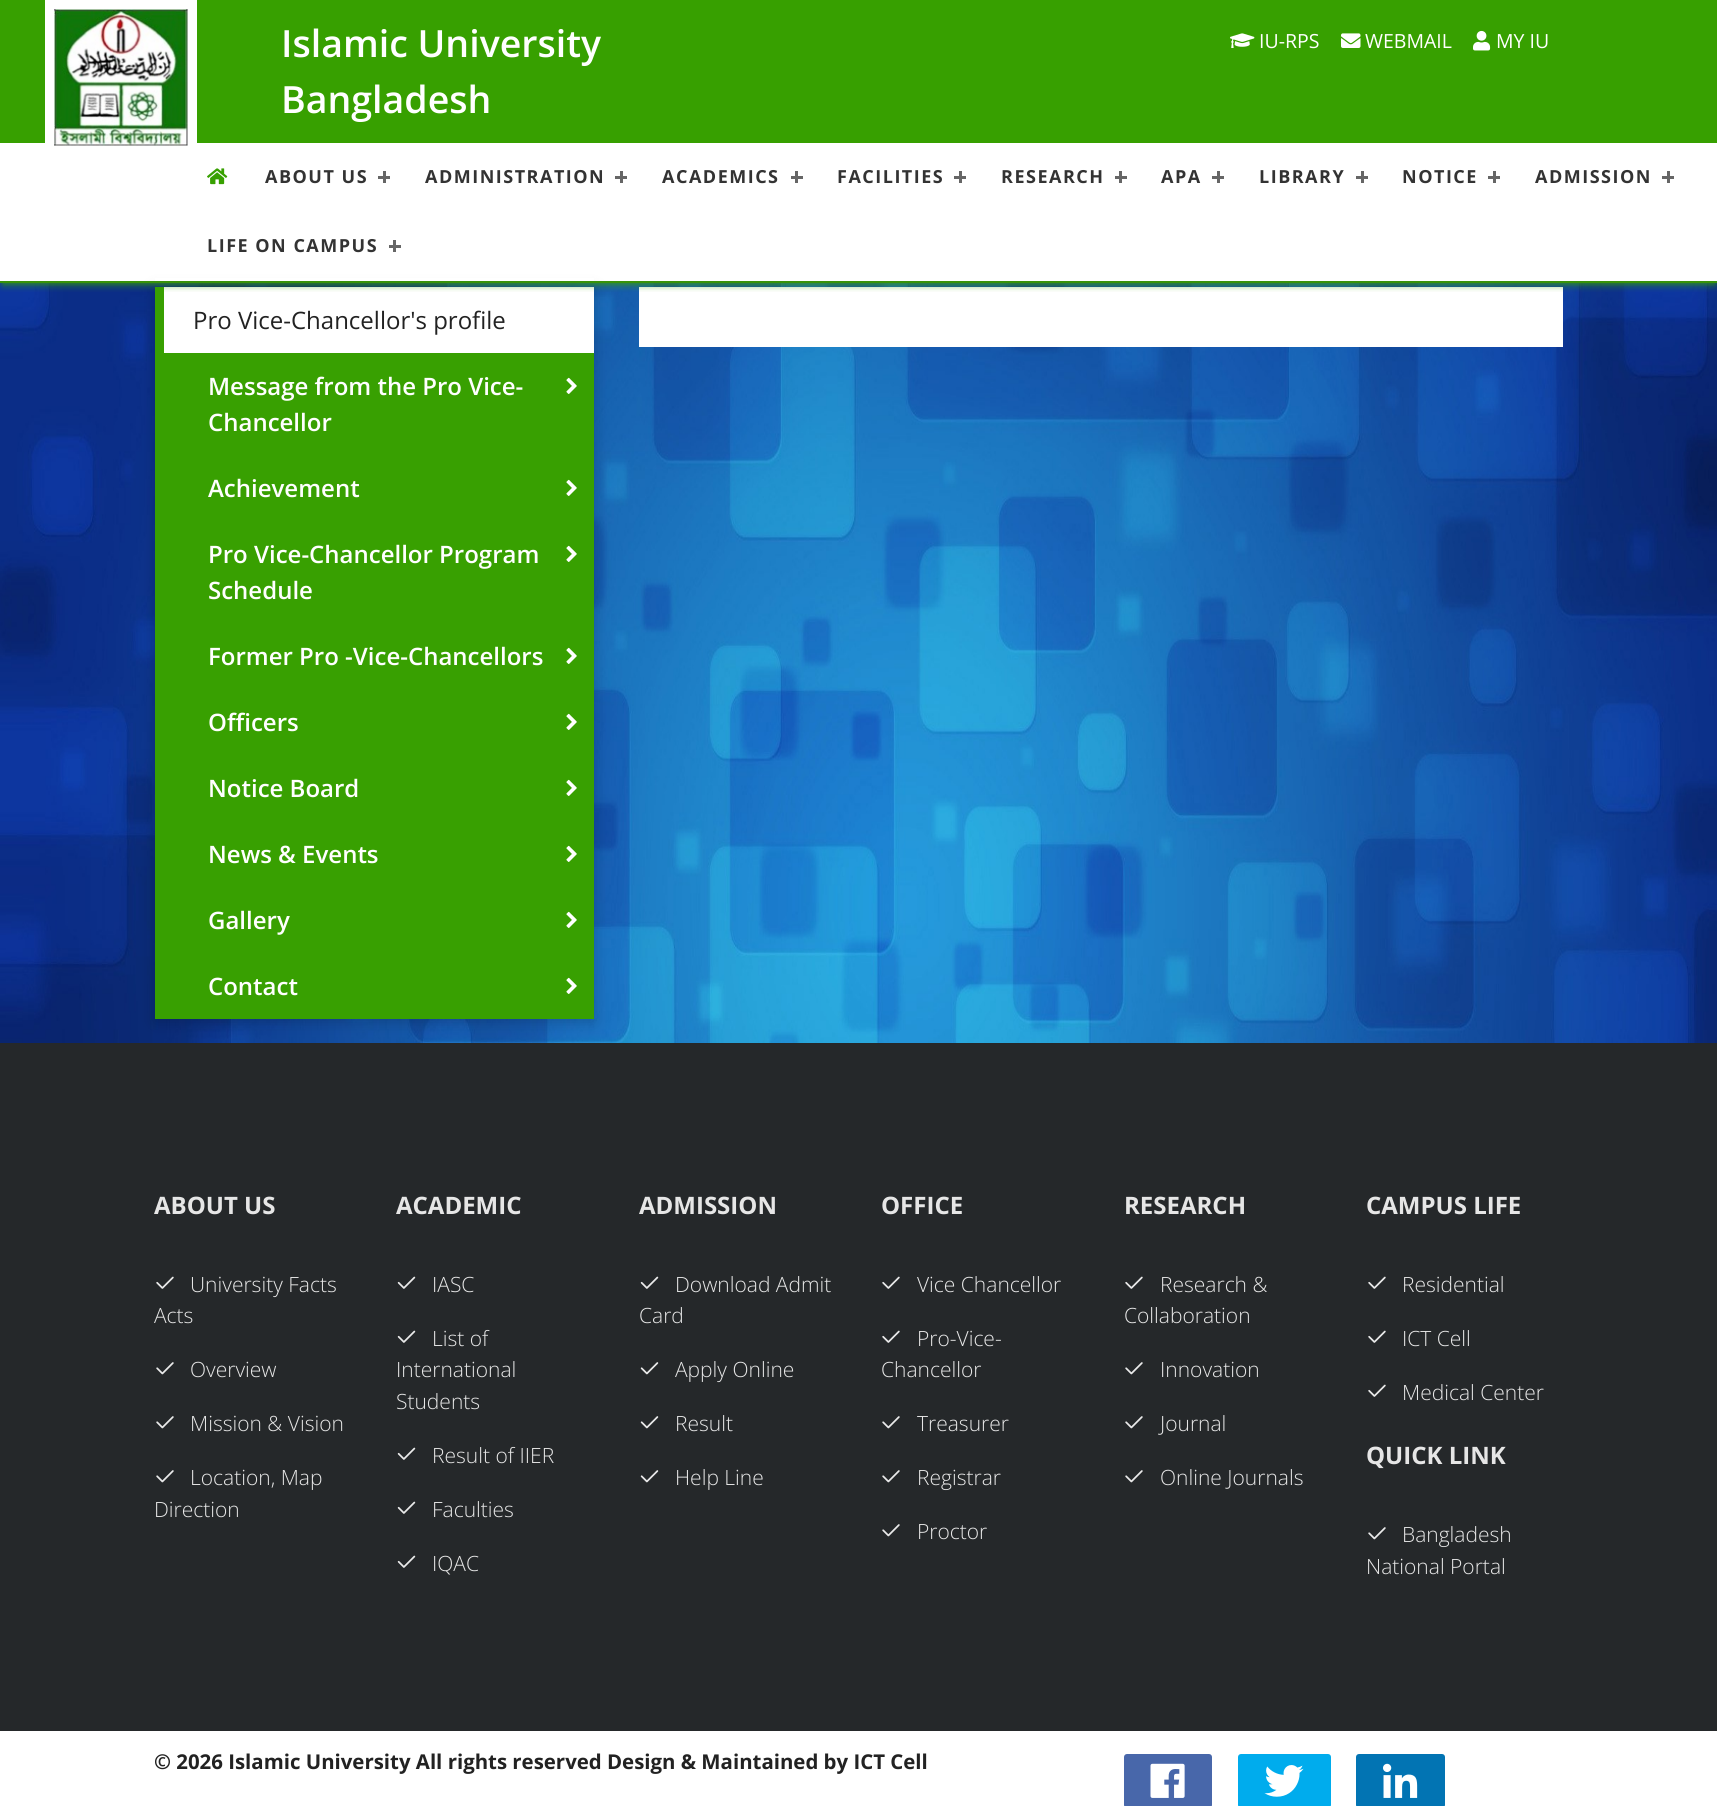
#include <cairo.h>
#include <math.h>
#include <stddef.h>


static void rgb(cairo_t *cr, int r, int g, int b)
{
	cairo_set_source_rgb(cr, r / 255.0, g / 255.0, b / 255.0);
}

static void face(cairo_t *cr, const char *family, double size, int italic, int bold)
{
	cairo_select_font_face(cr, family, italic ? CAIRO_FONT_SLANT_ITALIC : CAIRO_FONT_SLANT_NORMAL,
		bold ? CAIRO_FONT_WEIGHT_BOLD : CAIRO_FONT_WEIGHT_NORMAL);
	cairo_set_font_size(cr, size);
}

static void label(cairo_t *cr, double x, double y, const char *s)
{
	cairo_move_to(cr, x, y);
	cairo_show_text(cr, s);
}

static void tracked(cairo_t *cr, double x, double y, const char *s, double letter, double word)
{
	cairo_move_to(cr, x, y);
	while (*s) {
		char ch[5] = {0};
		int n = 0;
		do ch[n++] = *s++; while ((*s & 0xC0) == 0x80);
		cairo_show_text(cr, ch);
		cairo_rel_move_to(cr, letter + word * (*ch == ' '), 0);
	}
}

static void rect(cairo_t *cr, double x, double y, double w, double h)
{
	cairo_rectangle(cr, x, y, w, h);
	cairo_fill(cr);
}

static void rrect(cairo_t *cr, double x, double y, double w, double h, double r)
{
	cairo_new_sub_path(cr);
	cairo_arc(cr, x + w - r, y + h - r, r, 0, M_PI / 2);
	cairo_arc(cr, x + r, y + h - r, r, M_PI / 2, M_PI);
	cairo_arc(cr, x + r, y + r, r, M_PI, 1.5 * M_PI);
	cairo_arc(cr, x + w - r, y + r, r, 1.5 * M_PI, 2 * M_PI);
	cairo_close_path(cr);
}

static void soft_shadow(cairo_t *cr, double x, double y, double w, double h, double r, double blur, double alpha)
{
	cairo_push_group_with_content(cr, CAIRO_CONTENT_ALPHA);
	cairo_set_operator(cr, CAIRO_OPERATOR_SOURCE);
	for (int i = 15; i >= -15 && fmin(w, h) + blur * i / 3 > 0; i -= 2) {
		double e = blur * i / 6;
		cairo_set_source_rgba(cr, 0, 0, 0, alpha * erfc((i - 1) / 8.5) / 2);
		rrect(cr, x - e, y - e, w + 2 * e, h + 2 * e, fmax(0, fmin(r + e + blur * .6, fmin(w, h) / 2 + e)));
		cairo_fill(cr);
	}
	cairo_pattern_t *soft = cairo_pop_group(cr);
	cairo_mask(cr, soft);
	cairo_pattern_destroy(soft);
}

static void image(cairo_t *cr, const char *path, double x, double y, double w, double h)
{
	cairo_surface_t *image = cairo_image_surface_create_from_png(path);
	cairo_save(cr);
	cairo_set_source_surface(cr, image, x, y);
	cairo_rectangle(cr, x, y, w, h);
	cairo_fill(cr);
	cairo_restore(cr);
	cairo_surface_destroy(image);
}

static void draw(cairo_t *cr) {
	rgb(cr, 255, 255, 255);
	cairo_paint(cr);
	image(cr, "image5.png", 0, 283, 1717, 760);
	rgb(cr, 37, 40, 42);
	rect(cr, 0, 1043, 1717, 688);
	rgb(cr, 0, 0, 0);
	soft_shadow(cr, 155, 290, 439, 732, 0, 7.5, 0.2);
	rgb(cr, 255, 255, 255);
	rect(cr, 155, 278, 439, 3);
	rgb(cr, 55, 160, 0);
	rect(cr, 0, 0, 1717, 143);
	rgb(cr, 255, 255, 255);
	rect(cr, 164, 287, 430, 66);
	rgb(cr, 56, 160, 1);
	rect(cr, 155, 287, 9, 66);
	rgb(cr, 255, 255, 255);
	rect(cr, 639, 287, 924, 60);
	cairo_save(cr);
	cairo_rectangle(cr, 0, 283, 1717, 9);
	cairo_clip(cr);
	rgb(cr, 55, 160, 0);
	soft_shadow(cr, 3, 150, 1712, 134, 0, 4, 1);
	cairo_restore(cr);
	rect(cr, 45, 0, 152, 143);
	image(cr, "image0.png", 54, 9, 134, 137);
	face(cr, "Open Sans SemiBold", 37.5, 0, 0);
	label(cr, 281, 57, "Islamic University");
	label(cr, 281, 113, "Bangladesh");
	image(cr, "image1.png", 1230, 33, 25, 15);
	face(cr, "Open Sans", 19.5, 0, 0);
	label(cr, 1259, 48, "IU-RPS");
	image(cr, "image2.png", 1341, 33, 20, 15);
	label(cr, 1365, 48, "WEBMAIL");
	image(cr, "image3.png", 1473, 30, 18, 21);
	label(cr, 1496, 48, "MY IU");
	rgb(cr, 56, 147, 9);
	rect(cr, 0, 281, 1717, 2);
	image(cr, "image4.png", 207, 168, 21, 17);
	face(cr, "Open Sans", 18, 0, 1);
	rgb(cr, 51, 51, 51);
	tracked(cr, 265, 183, "ABOUT US", 1.5, 0);
	rgb(cr, 102, 102, 102);
	rect(cr, 383, 171, 3, 12);
	rect(cr, 378, 176, 12, 3);
	rgb(cr, 51, 51, 51);
	tracked(cr, 425, 183, "ADMINISTRATION", 1.5, 0);
	rgb(cr, 102, 102, 102);
	rect(cr, 620, 171, 3, 12);
	rect(cr, 615, 176, 12, 3);
	rgb(cr, 51, 51, 51);
	tracked(cr, 662, 183, "ACADEMICS", 1.5, 0);
	rgb(cr, 102, 102, 102);
	rect(cr, 795, 171, 3, 12);
	rect(cr, 791, 176, 12, 3);
	rgb(cr, 51, 51, 51);
	tracked(cr, 837, 183, "FACILITIES", 1.5, 0);
	rgb(cr, 102, 102, 102);
	rect(cr, 959, 171, 3, 12);
	rect(cr, 954, 176, 12, 3);
	rgb(cr, 51, 51, 51);
	tracked(cr, 1001, 183, "RESEARCH", 1.5, 0);
	rgb(cr, 102, 102, 102);
	rect(cr, 1119, 171, 3, 12);
	rect(cr, 1115, 176, 12, 3);
	rgb(cr, 51, 51, 51);
	tracked(cr, 1161, 183, "APA", 1.5, 0);
	rgb(cr, 102, 102, 102);
	rect(cr, 1217, 171, 3, 12);
	rect(cr, 1212, 176, 12, 3);
	rgb(cr, 51, 51, 51);
	tracked(cr, 1259, 183, "LIBRARY", 1.5, 0);
	rgb(cr, 102, 102, 102);
	rect(cr, 1361, 171, 3, 12);
	rect(cr, 1356, 176, 12, 3);
	rgb(cr, 51, 51, 51);
	tracked(cr, 1402, 183, "NOTICE", 1.5, 0);
	rgb(cr, 102, 102, 102);
	rect(cr, 1493, 171, 3, 12);
	rect(cr, 1488, 176, 12, 3);
	rgb(cr, 51, 51, 51);
	tracked(cr, 1535, 183, "ADMISSION", 1.5, 0);
	rgb(cr, 102, 102, 102);
	rect(cr, 1667, 171, 3, 12);
	rect(cr, 1662, 176, 12, 3);
	rgb(cr, 51, 51, 51);
	tracked(cr, 207, 252, "LIFE ON CAMPUS", 1.5, 0);
	rgb(cr, 102, 102, 102);
	rect(cr, 393, 240, 3, 12);
	rect(cr, 389, 245, 12, 3);
	face(cr, "Open Sans", 24, 0, 0);
	rgb(cr, 34, 34, 34);
	label(cr, 193, 329, "Pro Vice-Chancellor's profile");
	rgb(cr, 56, 160, 1);
	rect(cr, 155, 353, 439, 666);
	face(cr, "Open Sans SemiBold", 24, 0, 0);
	rgb(cr, 255, 255, 255);
	label(cr, 208, 395, "Message from the Pro Vice-");
	image(cr, "image6.png", 566, 377, 11, 17);
	label(cr, 208, 431, "Chancellor");
	label(cr, 208, 497, "Achievement");
	image(cr, "image6.png", 566, 479, 11, 17);
	label(cr, 208, 563, "Pro Vice-Chancellor Program");
	image(cr, "image6.png", 566, 545, 11, 17);
	label(cr, 208, 599, "Schedule");
	label(cr, 208, 665, "Former Pro -Vice-Chancellors");
	image(cr, "image6.png", 566, 647, 11, 17);
	label(cr, 208, 731, "Officers");
	image(cr, "image6.png", 566, 713, 11, 17);
	label(cr, 208, 797, "Notice Board");
	image(cr, "image6.png", 566, 779, 11, 17);
	label(cr, 208, 863, "News & Events");
	image(cr, "image6.png", 566, 845, 11, 17);
	label(cr, 208, 929, "Gallery");
	image(cr, "image6.png", 566, 911, 11, 17);
	label(cr, 208, 995, "Contact");
	image(cr, "image6.png", 566, 977, 11, 17);
	face(cr, "Open Sans", 24, 0, 1);
	rgb(cr, 230, 230, 230);
	label(cr, 154, 1214, "ABOUT US");
	image(cr, "image7.png", 156, 1276, 18, 13);
	face(cr, "Open Sans Light", 21, 0, 0);
	label(cr, 190, 1292, "University Facts");
	label(cr, 154, 1323, "Acts");
	image(cr, "image8.png", 156, 1362, 18, 13);
	label(cr, 190, 1377, "Overview");
	image(cr, "image8.png", 156, 1416, 18, 13);
	label(cr, 190, 1431, "Mission & Vision");
	image(cr, "image8.png", 156, 1470, 18, 13);
	label(cr, 190, 1485, "Location, Map");
	label(cr, 154, 1517, "Direction");
	face(cr, "Open Sans", 24, 0, 1);
	label(cr, 396, 1214, "ACADEMIC");
	image(cr, "image9.png", 397, 1276, 19, 13);
	face(cr, "Open Sans Light", 21, 0, 0);
	label(cr, 432, 1292, "IASC");
	image(cr, "image9.png", 397, 1330, 19, 13);
	label(cr, 432, 1346, "List of");
	label(cr, 396, 1377, "International");
	label(cr, 396, 1409, "Students");
	image(cr, "image9.png", 397, 1447, 19, 13);
	label(cr, 432, 1463, "Result of IIER");
	image(cr, "image9.png", 397, 1501, 19, 13);
	label(cr, 432, 1517, "Faculties");
	image(cr, "image9.png", 397, 1555, 19, 13);
	label(cr, 432, 1571, "IQAC");
	face(cr, "Open Sans", 24, 0, 1);
	label(cr, 639, 1214, "ADMISSION");
	image(cr, "image9.png", 640, 1276, 19, 13);
	face(cr, "Open Sans Light", 21, 0, 0);
	label(cr, 675, 1292, "Download Admit");
	label(cr, 639, 1323, "Card");
	image(cr, "image10.png", 640, 1362, 19, 13);
	label(cr, 675, 1377, "Apply Online");
	image(cr, "image10.png", 640, 1416, 19, 13);
	label(cr, 675, 1431, "Result");
	image(cr, "image10.png", 640, 1470, 19, 13);
	label(cr, 675, 1485, "Help Line");
	face(cr, "Open Sans", 24, 0, 1);
	label(cr, 881, 1214, "OFFICE");
	image(cr, "image7.png", 882, 1276, 18, 13);
	face(cr, "Open Sans Light", 21, 0, 0);
	label(cr, 917, 1292, "Vice Chancellor");
	image(cr, "image7.png", 882, 1330, 18, 13);
	label(cr, 917, 1346, "Pro-Vice-");
	label(cr, 881, 1377, "Chancellor");
	image(cr, "image8.png", 882, 1416, 18, 13);
	label(cr, 917, 1431, "Treasurer");
	image(cr, "image8.png", 882, 1470, 18, 13);
	label(cr, 917, 1485, "Registrar");
	image(cr, "image8.png", 882, 1524, 18, 13);
	label(cr, 917, 1539, "Proctor");
	face(cr, "Open Sans", 24, 0, 1);
	label(cr, 1124, 1214, "RESEARCH");
	image(cr, "image7.png", 1125, 1276, 18, 13);
	face(cr, "Open Sans Light", 21, 0, 0);
	label(cr, 1160, 1292, "Research &");
	label(cr, 1124, 1323, "Collaboration");
	image(cr, "image8.png", 1125, 1362, 18, 13);
	label(cr, 1160, 1377, "Innovation");
	image(cr, "image8.png", 1125, 1416, 18, 13);
	label(cr, 1160, 1431, "Journal");
	image(cr, "image8.png", 1125, 1470, 18, 13);
	label(cr, 1160, 1485, "Online Journals");
	face(cr, "Open Sans", 24, 0, 1);
	label(cr, 1366, 1214, "CAMPUS LIFE");
	image(cr, "image7.png", 1368, 1276, 18, 13);
	face(cr, "Open Sans Light", 21, 0, 0);
	label(cr, 1402, 1292, "Residential");
	image(cr, "image7.png", 1368, 1330, 18, 13);
	label(cr, 1402, 1346, "ICT Cell");
	image(cr, "image7.png", 1368, 1384, 18, 13);
	label(cr, 1402, 1400, "Medical Center");
	face(cr, "Open Sans", 24, 0, 1);
	label(cr, 1366, 1464, "QUICK LINK");
	image(cr, "image8.png", 1368, 1527, 18, 13);
	face(cr, "Open Sans Light", 21, 0, 0);
	label(cr, 1402, 1542, "Bangladesh");
	label(cr, 1366, 1574, "National Portal");
	face(cr, "Open Sans", 20.4, 0, 1);
	rgb(cr, 34, 34, 34);
	label(cr, 154, 1769, "© 2026 Islamic University All rights reserved Design & Maintained by ICT Cell");
	rgb(cr, 72, 103, 170);
	rrect(cr, 1124, 1754, 88, 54, 3);
	cairo_fill(cr);
	image(cr, "image11.png", 1150, 1763, 35, 35);
	rgb(cr, 0, 172, 237);
	rrect(cr, 1238, 1754, 93, 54, 3);
	cairo_fill(cr);
	image(cr, "image12.png", 1264, 1765, 40, 32);
	rgb(cr, 2, 116, 179);
	rrect(cr, 1356, 1754, 89, 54, 3);
	cairo_fill(cr);
	image(cr, "image13.png", 1383, 1763, 35, 35);
}

int main(void) {
	cairo_surface_t *surface = cairo_image_surface_create(CAIRO_FORMAT_RGB24, 1717, 1806);
	cairo_t *cr = cairo_create(surface);
	cairo_font_options_t *options = cairo_font_options_create();
	cairo_font_options_set_hint_metrics(options, CAIRO_HINT_METRICS_OFF);
	cairo_font_options_set_hint_style(options, CAIRO_HINT_STYLE_NONE);
	cairo_set_font_options(cr, options);
	cairo_set_miter_limit(cr, 4);
	draw(cr);
	cairo_surface_write_to_png(surface, "render.png");
	cairo_font_options_destroy(options);
	cairo_destroy(cr);
	cairo_surface_destroy(surface);
	return 0;
}
